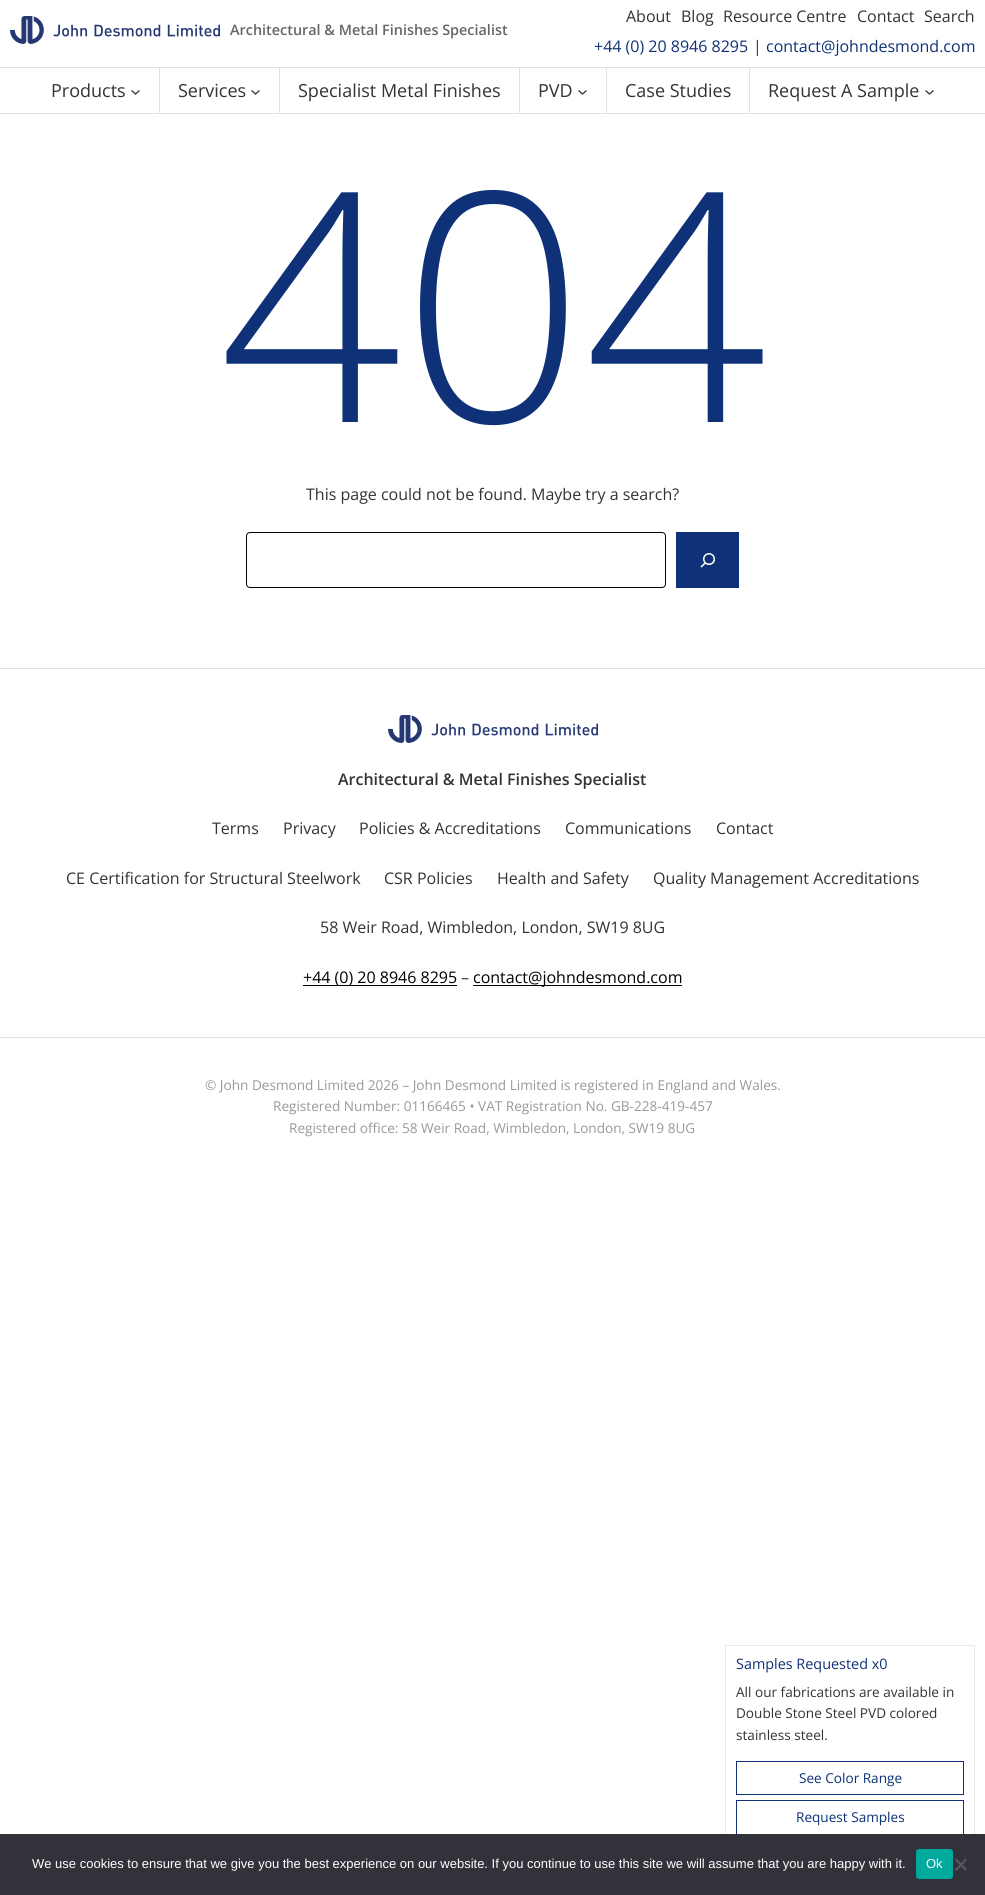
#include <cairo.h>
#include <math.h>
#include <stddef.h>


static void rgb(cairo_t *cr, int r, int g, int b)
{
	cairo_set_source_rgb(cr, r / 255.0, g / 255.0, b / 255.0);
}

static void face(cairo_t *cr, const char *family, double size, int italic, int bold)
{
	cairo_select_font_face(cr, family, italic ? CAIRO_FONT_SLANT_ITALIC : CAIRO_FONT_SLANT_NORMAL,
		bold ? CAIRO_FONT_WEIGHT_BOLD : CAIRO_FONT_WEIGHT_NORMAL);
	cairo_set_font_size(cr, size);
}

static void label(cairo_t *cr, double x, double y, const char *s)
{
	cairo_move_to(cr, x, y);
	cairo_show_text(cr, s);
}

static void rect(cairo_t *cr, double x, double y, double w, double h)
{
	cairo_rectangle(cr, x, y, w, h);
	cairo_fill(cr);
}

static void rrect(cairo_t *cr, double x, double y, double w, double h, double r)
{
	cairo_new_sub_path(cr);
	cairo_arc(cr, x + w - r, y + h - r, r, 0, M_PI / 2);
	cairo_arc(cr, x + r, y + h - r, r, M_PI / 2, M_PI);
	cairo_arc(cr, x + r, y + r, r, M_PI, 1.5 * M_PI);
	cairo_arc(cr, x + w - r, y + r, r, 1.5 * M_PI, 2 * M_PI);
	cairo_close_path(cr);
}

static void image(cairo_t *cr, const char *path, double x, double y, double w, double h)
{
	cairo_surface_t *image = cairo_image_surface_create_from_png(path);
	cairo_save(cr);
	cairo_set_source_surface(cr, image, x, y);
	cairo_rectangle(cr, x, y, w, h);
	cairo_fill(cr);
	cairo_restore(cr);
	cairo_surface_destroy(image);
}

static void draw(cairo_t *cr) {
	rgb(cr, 255, 255, 255);
	cairo_paint(cr);
	image(cr, "image0.png", 10, 16, 210, 28);
	face(cr, "Open Sans SemiBold", 14.4, 0, 0);
	rgb(cr, 102, 102, 102);
	label(cr, 230, 35, "Architectural & Metal Finishes Specialist");
	face(cr, "Open Sans", 16, 0, 0);
	rgb(cr, 51, 51, 51);
	label(cr, 626, 22, "About");
	label(cr, 681, 22, "Blog");
	label(cr, 723, 22, "Resource Centre");
	label(cr, 857, 22, "Contact");
	label(cr, 924, 22, "Search");
	rgb(cr, 14, 49, 119);
	label(cr, 594, 52, "+44 (0) 20 8946 8295");
	rgb(cr, 51, 51, 51);
	label(cr, 753, 52, "|");
	rgb(cr, 14, 49, 119);
	label(cr, 766, 52, "contact@johndesmond.com");
	rgb(cr, 222, 226, 230);
	rect(cr, 0, 67, 985, 1);
	face(cr, "Open Sans", 18, 0, 0);
	rgb(cr, 51, 51, 51);
	label(cr, 51, 97, "Products");
	cairo_new_path(cr);
	cairo_move_to(cr, 131.5, 90.5);
	cairo_line_to(cr, 135.5, 94);
	cairo_line_to(cr, 139.5, 90.5);
	cairo_set_line_width(cr, 1.3);
	cairo_stroke(cr);
	rgb(cr, 222, 226, 230);
	rect(cr, 159, 68, 1, 45);
	rgb(cr, 51, 51, 51);
	label(cr, 178, 97, "Services");
	cairo_new_path(cr);
	cairo_move_to(cr, 251.5, 90.5);
	cairo_line_to(cr, 255.5, 94);
	cairo_line_to(cr, 259.5, 90.5);
	cairo_stroke(cr);
	rgb(cr, 222, 226, 230);
	rect(cr, 279, 68, 1, 45);
	rgb(cr, 51, 51, 51);
	label(cr, 298, 97, "Specialist Metal Finishes");
	rgb(cr, 222, 226, 230);
	rect(cr, 519, 68, 1, 45);
	rgb(cr, 51, 51, 51);
	label(cr, 538, 97, "PVD");
	cairo_new_path(cr);
	cairo_move_to(cr, 578.5, 90.5);
	cairo_line_to(cr, 582.5, 94);
	cairo_line_to(cr, 586.5, 90.5);
	cairo_stroke(cr);
	rgb(cr, 222, 226, 230);
	rect(cr, 606, 68, 1, 45);
	rgb(cr, 51, 51, 51);
	label(cr, 625, 97, "Case Studies");
	rgb(cr, 222, 226, 230);
	rect(cr, 749, 68, 1, 45);
	rgb(cr, 51, 51, 51);
	label(cr, 768, 97, "Request A Sample");
	cairo_new_path(cr);
	cairo_move_to(cr, 925.5, 90.5);
	cairo_line_to(cr, 929.5, 94);
	cairo_line_to(cr, 933.5, 90.5);
	cairo_stroke(cr);
	rgb(cr, 222, 226, 230);
	rect(cr, 0, 113, 985, 1);
	face(cr, "Open Sans Light", 320, 0, 0);
	rgb(cr, 14, 49, 119);
	label(cr, 219, 422, "404");
	face(cr, "Open Sans", 16, 0, 0);
	rgb(cr, 51, 51, 51);
	label(cr, 306, 500, "This page could not be found. Maybe try a search?");
	rrect(cr, 246.5, 532.5, 419, 55, 3.5);
	rgb(cr, 0, 0, 0);
	cairo_set_line_width(cr, 1);
	cairo_stroke(cr);
	rgb(cr, 14, 49, 119);
	rect(cr, 676, 532, 63, 56);
	image(cr, "image1.png", 700, 553, 16, 15);
	rgb(cr, 222, 226, 230);
	rect(cr, 0, 668, 985, 1);
	image(cr, "image0.png", 388, 715, 210, 28);
	face(cr, "Open Sans SemiBold", 16, 0, 0);
	rgb(cr, 51, 51, 51);
	label(cr, 338, 785, "Architectural & Metal Finishes Specialist");
	face(cr, "Open Sans", 16, 0, 0);
	label(cr, 212, 834, "Terms");
	label(cr, 283, 834, "Privacy");
	label(cr, 359, 834, "Policies & Accreditations");
	label(cr, 565, 834, "Communications");
	label(cr, 716, 834, "Contact");
	label(cr, 66, 884, "CE Certification for Structural Steelwork");
	label(cr, 384, 884, "CSR Policies");
	label(cr, 497, 884, "Health and Safety");
	label(cr, 653, 884, "Quality Management Accreditations");
	label(cr, 320, 933, "58 Weir Road, Wimbledon, London, SW19 8UG");
	rgb(cr, 0, 0, 0);
	rect(cr, 303, 985, 154, 1);
	label(cr, 303, 983, "+44 (0) 20 8946 8295");
	rgb(cr, 51, 51, 51);
	label(cr, 461, 983, "–");
	rgb(cr, 0, 0, 0);
	rect(cr, 473, 985, 209, 1);
	label(cr, 473, 983, "contact@johndesmond.com");
	rgb(cr, 222, 226, 230);
	rect(cr, 0, 1037, 985, 1);
	face(cr, "Open Sans", 13.6, 0, 0);
	rgb(cr, 153, 153, 153);
	label(cr, 205, 1090, "© John Desmond Limited 2026 – John Desmond Limited is registered in England and Wales.");
	label(cr, 273, 1111, "Registered Number: 01166465 • VAT Registration No. GB-228-419-457");
	label(cr, 289, 1133, "Registered office: 58 Weir Road, Wimbledon, London, SW19 8UG");
	cairo_rectangle(cr, 725.5, 1645.5, 249, 239);
	rgb(cr, 234, 234, 234);
	cairo_stroke(cr);
	face(cr, "Open Sans", 14.4, 0, 0);
	rgb(cr, 14, 49, 119);
	label(cr, 736, 1669, "Samples Requested x0");
	face(cr, "Open Sans", 13.6, 0, 0);
	rgb(cr, 51, 51, 51);
	label(cr, 736, 1697, "All our fabrications are available in");
	label(cr, 736, 1718, "Double Stone Steel PVD colored");
	label(cr, 736, 1740, "stainless steel.");
	cairo_rectangle(cr, 736.5, 1761.5, 227, 33);
	rgb(cr, 14, 49, 119);
	cairo_stroke(cr);
	label(cr, 799, 1783, "See Color Range");
	cairo_rectangle(cr, 736.5, 1800.5, 227, 34);
	cairo_stroke(cr);
	label(cr, 796, 1822, "Request Samples");
	rgb(cr, 50, 50, 58);
	rect(cr, 0, 1834, 985, 61);
	face(cr, "Liberation Sans", 13, 0, 0);
	rgb(cr, 255, 255, 255);
	label(cr, 32, 1868, "We use cookies to ensure that we give you the best experience on our website. If you continue to use this site we will assume that you are happy with it.");
	rgb(cr, 0, 169, 157);
	rrect(cr, 916, 1849, 37, 30, 3);
	cairo_fill(cr);
	rgb(cr, 255, 255, 255);
	label(cr, 926, 1868, "Ok");
	rgb(cr, 89, 89, 93);
	cairo_new_path(cr);
	cairo_move_to(cr, 965.5, 1858.5);
	cairo_line_to(cr, 967, 1860);
	cairo_line_to(cr, 956.5, 1871);
	cairo_line_to(cr, 955, 1869.5);
	cairo_close_path(cr);
	cairo_fill(cr);
	cairo_new_path(cr);
	cairo_move_to(cr, 955, 1860);
	cairo_line_to(cr, 956.5, 1858.5);
	cairo_line_to(cr, 967, 1869.5);
	cairo_line_to(cr, 965.5, 1871);
	cairo_close_path(cr);
	cairo_fill(cr);
}

int main(void) {
	cairo_surface_t *surface = cairo_image_surface_create(CAIRO_FORMAT_RGB24, 985, 1895);
	cairo_t *cr = cairo_create(surface);
	cairo_font_options_t *options = cairo_font_options_create();
	cairo_font_options_set_hint_metrics(options, CAIRO_HINT_METRICS_OFF);
	cairo_font_options_set_hint_style(options, CAIRO_HINT_STYLE_NONE);
	cairo_set_font_options(cr, options);
	cairo_set_miter_limit(cr, 4);
	draw(cr);
	cairo_surface_write_to_png(surface, "render.png");
	cairo_font_options_destroy(options);
	cairo_destroy(cr);
	cairo_surface_destroy(surface);
	return 0;
}
